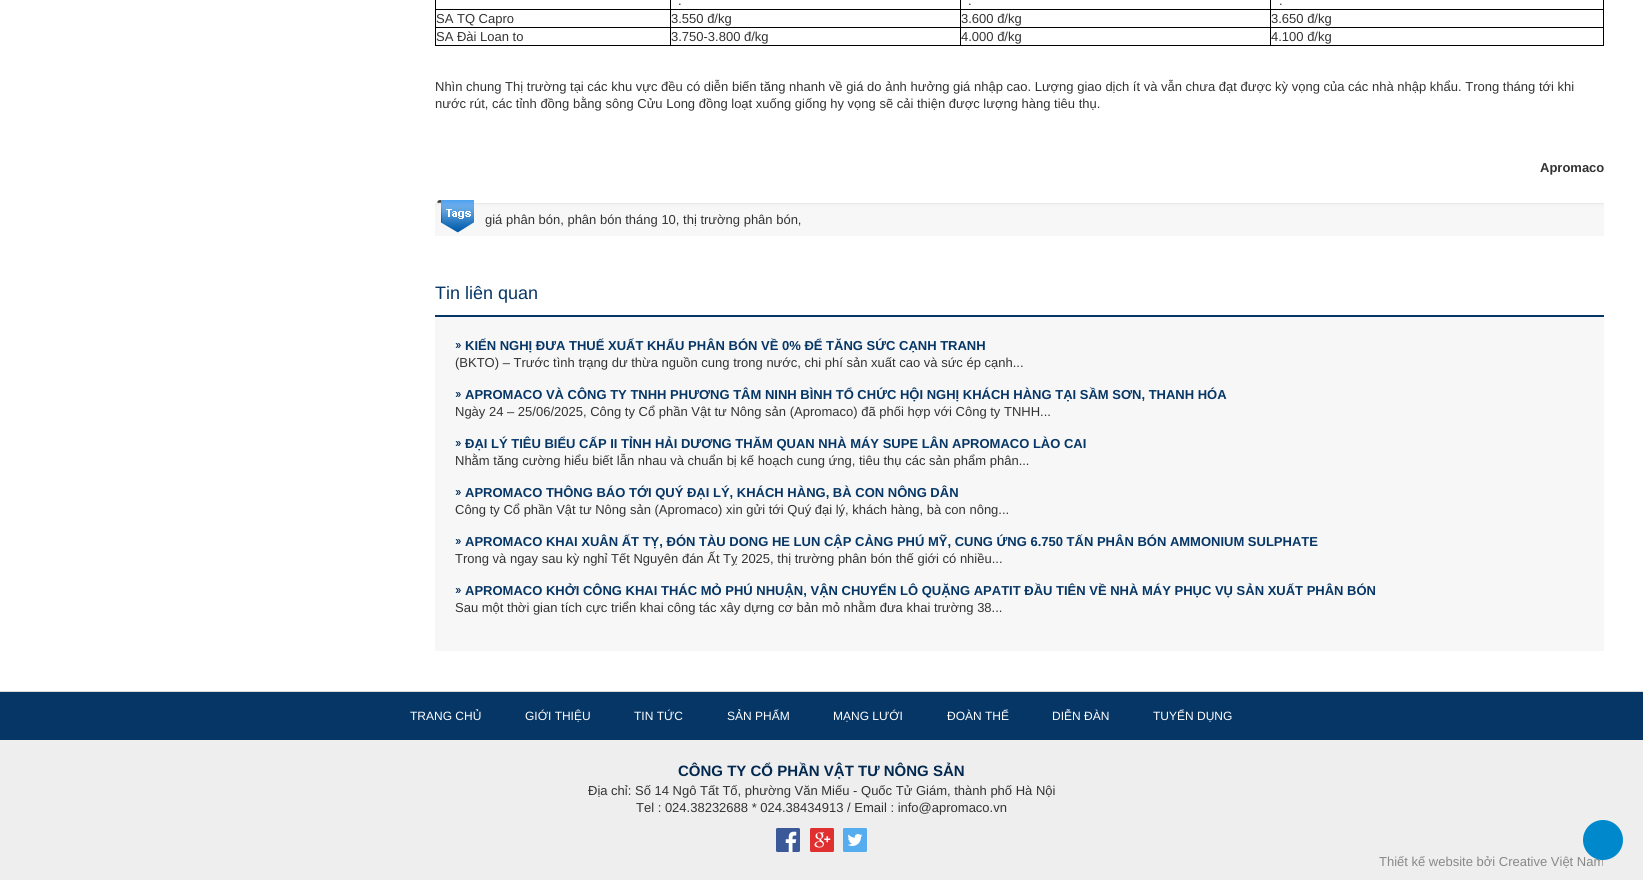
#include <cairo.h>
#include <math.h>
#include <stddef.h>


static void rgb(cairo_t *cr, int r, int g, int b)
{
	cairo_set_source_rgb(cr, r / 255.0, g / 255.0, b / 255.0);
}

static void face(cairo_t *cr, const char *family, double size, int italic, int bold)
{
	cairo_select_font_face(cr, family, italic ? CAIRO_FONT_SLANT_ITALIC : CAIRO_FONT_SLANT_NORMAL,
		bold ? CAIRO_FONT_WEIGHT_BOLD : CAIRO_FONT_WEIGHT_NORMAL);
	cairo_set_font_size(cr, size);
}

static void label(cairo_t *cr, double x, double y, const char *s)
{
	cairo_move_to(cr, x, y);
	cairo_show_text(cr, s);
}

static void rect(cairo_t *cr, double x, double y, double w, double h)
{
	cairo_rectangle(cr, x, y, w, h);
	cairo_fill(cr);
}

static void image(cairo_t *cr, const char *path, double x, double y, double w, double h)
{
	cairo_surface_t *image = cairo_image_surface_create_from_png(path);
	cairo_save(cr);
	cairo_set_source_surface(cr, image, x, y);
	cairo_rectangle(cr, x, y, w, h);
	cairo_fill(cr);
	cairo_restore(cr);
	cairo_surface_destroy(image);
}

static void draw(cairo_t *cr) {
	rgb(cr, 255, 255, 255);
	cairo_paint(cr);
	rgb(cr, 0, 0, 0);
	rect(cr, 1603, 0, 1, 46);
	rect(cr, 435, 45, 1169, 1);
	rect(cr, 435, 0, 1, 46);
	rect(cr, 1270, 9, 334, 1);
	rect(cr, 1270, 27, 334, 1);
	rect(cr, 1270, 27, 1, 19);
	rect(cr, 960, 27, 311, 1);
	rect(cr, 1270, 9, 1, 19);
	rect(cr, 960, 9, 311, 1);
	rect(cr, 960, 27, 1, 19);
	rect(cr, 670, 27, 291, 1);
	rect(cr, 960, 9, 1, 19);
	rect(cr, 670, 9, 291, 1);
	rect(cr, 670, 27, 1, 19);
	rect(cr, 435, 27, 236, 1);
	rect(cr, 670, 9, 1, 19);
	rect(cr, 435, 9, 236, 1);
	rect(cr, 670, 0, 1, 10);
	face(cr, "Liberation Sans", 13, 0, 0);
	rgb(cr, 51, 51, 51);
	label(cr, 678, 5, ".");
	rgb(cr, 0, 0, 0);
	rect(cr, 960, 0, 1, 10);
	rgb(cr, 51, 51, 51);
	label(cr, 968, 5, ".");
	rgb(cr, 0, 0, 0);
	rect(cr, 1270, 0, 1, 10);
	rgb(cr, 51, 51, 51);
	label(cr, 1279, 5, ".");
	label(cr, 436, 23, "SA TQ Capro");
	label(cr, 671, 23, "3.550 đ/kg");
	label(cr, 961, 23, "3.600 đ/kg");
	label(cr, 1271, 23, "3.650 đ/kg");
	label(cr, 436, 41, "SA Đài Loan to");
	label(cr, 671, 41, "3.750-3.800 đ/kg");
	label(cr, 961, 41, "4.000 đ/kg");
	label(cr, 1271, 41, "4.100 đ/kg");
	label(cr, 435, 91, "Nhìn chung Thị trường tại các khu vực đều có diễn biến tăng nhanh về giá do ảnh hưởng giá nhập cao. Lượng giao dịch ít và vẫn chưa đạt được kỳ vọng của các nhà nhập khẩu. Trong tháng tới khi");
	label(cr, 435, 108, "nước rút, các tỉnh đồng bằng sông Cửu Long đồng loạt xuống giống hy vọng sẽ cải thiện được lượng hàng tiêu thụ.");
	face(cr, "Liberation Sans", 13, 0, 1);
	label(cr, 1540, 172, "Apromaco");
	image(cr, "image0.png", 435, 203, 1169, 33);
	image(cr, "image1.png", 435, 200, 39, 33);
	face(cr, "Liberation Sans", 13, 0, 0);
	label(cr, 485, 224, "giá phân bón, phân bón tháng 10, thị trường phân bón,");
	rgb(cr, 6, 54, 102);
	rect(cr, 435, 315, 1169, 2);
	face(cr, "Liberation Sans", 18, 0, 0);
	label(cr, 435, 299, "Tin liên quan");
	rgb(cr, 247, 247, 247);
	rect(cr, 435, 317, 1169, 334);
	image(cr, "image2.png", 455, 343, 6, 5);
	face(cr, "Liberation Sans", 13, 0, 1);
	rgb(cr, 6, 54, 102);
	label(cr, 465, 350, "KIẾN NGHỊ ĐƯA THUẾ XUẤT KHẨU PHÂN BÓN VỀ 0% ĐỂ TĂNG SỨC CẠNH TRANH");
	face(cr, "Liberation Sans", 13, 0, 0);
	rgb(cr, 51, 51, 51);
	label(cr, 455, 367, "(BKTO) – Trước tình trạng dư thừa nguồn cung trong nước, chi phí sản xuất cao và sức ép cạnh...");
	image(cr, "image2.png", 455, 392, 6, 5);
	face(cr, "Liberation Sans", 13, 0, 1);
	rgb(cr, 6, 54, 102);
	label(cr, 465, 399, "APROMACO VÀ CÔNG TY TNHH PHƯƠNG TÂM NINH BÌNH TỔ CHỨC HỘI NGHỊ KHÁCH HÀNG TẠI SẦM SƠN, THANH HÓA");
	face(cr, "Liberation Sans", 13, 0, 0);
	rgb(cr, 51, 51, 51);
	label(cr, 455, 416, "Ngày 24 – 25/06/2025, Công ty Cổ phần Vật tư Nông sản (Apromaco) đã phối hợp với Công ty TNHH...");
	image(cr, "image2.png", 455, 441, 6, 5);
	face(cr, "Liberation Sans", 13, 0, 1);
	rgb(cr, 6, 54, 102);
	label(cr, 465, 448, "ĐẠI LÝ TIÊU BIỂU CẤP II TỈNH HẢI DƯƠNG THĂM QUAN NHÀ MÁY SUPE LÂN APROMACO LÀO CAI");
	face(cr, "Liberation Sans", 13, 0, 0);
	rgb(cr, 51, 51, 51);
	label(cr, 455, 465, "Nhằm tăng cường hiểu biết lẫn nhau và chuẩn bị kế hoạch cung ứng, tiêu thụ các sản phẩm phân...");
	image(cr, "image2.png", 455, 490, 6, 5);
	face(cr, "Liberation Sans", 13, 0, 1);
	rgb(cr, 6, 54, 102);
	label(cr, 465, 497, "APROMACO THÔNG BÁO TỚI QUÝ ĐẠI LÝ, KHÁCH HÀNG, BÀ CON NÔNG DÂN");
	face(cr, "Liberation Sans", 13, 0, 0);
	rgb(cr, 51, 51, 51);
	label(cr, 455, 514, "Công ty Cổ phần Vật tư Nông sản (Apromaco) xin gửi tới Quý đại lý, khách hàng, bà con nông...");
	image(cr, "image2.png", 455, 539, 6, 5);
	face(cr, "Liberation Sans", 13, 0, 1);
	rgb(cr, 6, 54, 102);
	label(cr, 465, 546, "APROMACO KHAI XUÂN ẤT TỴ, ĐÓN TÀU DONG HE LUN CẬP CẢNG PHÚ MỸ, CUNG ỨNG 6.750 TẤN PHÂN BÓN AMMONIUM SULPHATE");
	face(cr, "Liberation Sans", 13, 0, 0);
	rgb(cr, 51, 51, 51);
	label(cr, 455, 563, "Trong và ngay sau kỳ nghỉ Tết Nguyên đán Ất Tỵ 2025, thị trường phân bón thế giới có nhiều...");
	image(cr, "image2.png", 455, 588, 6, 5);
	face(cr, "Liberation Sans", 13, 0, 1);
	rgb(cr, 6, 54, 102);
	label(cr, 465, 595, "APROMACO KHỞI CÔNG KHAI THÁC MỎ PHÚ NHUẬN, VẬN CHUYỂN LÔ QUẶNG APATIT ĐẦU TIÊN VỀ NHÀ MÁY PHỤC VỤ SẢN XUẤT PHÂN BÓN");
	face(cr, "Liberation Sans", 13, 0, 0);
	rgb(cr, 51, 51, 51);
	label(cr, 455, 612, "Sau một thời gian tích cực triển khai công tác xây dựng cơ bản mỏ nhằm đưa khai trường 38...");
	rgb(cr, 238, 238, 238);
	rect(cr, 0, 740, 1643, 140);
	rgb(cr, 217, 217, 217);
	rect(cr, 0, 691, 1643, 1);
	rgb(cr, 6, 54, 102);
	rect(cr, 0, 692, 1643, 48);
	face(cr, "Liberation Sans", 12, 0, 0);
	rgb(cr, 255, 255, 255);
	label(cr, 410, 720, "TRANG CHỦ");
	label(cr, 525, 720, "GIỚI THIỆU");
	label(cr, 634, 720, "TIN TỨC");
	label(cr, 727, 720, "SẢN PHẨM");
	label(cr, 833, 720, "MẠNG LƯỚI");
	label(cr, 947, 720, "ĐOÀN THỂ");
	label(cr, 1052, 720, "DIỄN ĐÀN");
	label(cr, 1153, 720, "TUYỂN DỤNG");
	face(cr, "Liberation Sans", 15, 0, 1);
	rgb(cr, 2, 40, 79);
	label(cr, 678, 776, "CÔNG TY CỔ PHẦN VẬT TƯ NÔNG SẢN");
	face(cr, "Liberation Sans", 13, 0, 0);
	rgb(cr, 51, 51, 51);
	label(cr, 588, 795, "Địa chỉ: Số 14 Ngô Tất Tố, phường Văn Miếu - Quốc Tử Giám, thành phố Hà Nội");
	label(cr, 636, 812, "Tel : 024.38232688 * 024.38434913 / Email : info@apromaco.vn");
	image(cr, "image3.png", 776, 828, 24, 24);
	image(cr, "image4.png", 810, 828, 24, 24);
	image(cr, "image5.png", 843, 828, 24, 24);
	rgb(cr, 136, 136, 136);
	label(cr, 1379, 866, "Thiết kế website bởi Creative Việt Nam");
	rgb(cr, 0, 136, 204);
	cairo_new_path(cr);
	cairo_arc(cr, 1603, 840, 20, 0, 2 * M_PI);
	cairo_fill(cr);
}

int main(void) {
	cairo_surface_t *surface = cairo_image_surface_create(CAIRO_FORMAT_RGB24, 1643, 880);
	cairo_t *cr = cairo_create(surface);
	cairo_font_options_t *options = cairo_font_options_create();
	cairo_font_options_set_hint_metrics(options, CAIRO_HINT_METRICS_OFF);
	cairo_font_options_set_hint_style(options, CAIRO_HINT_STYLE_NONE);
	cairo_set_font_options(cr, options);
	cairo_set_miter_limit(cr, 4);
	draw(cr);
	cairo_surface_write_to_png(surface, "render.png");
	cairo_font_options_destroy(options);
	cairo_destroy(cr);
	cairo_surface_destroy(surface);
	return 0;
}
